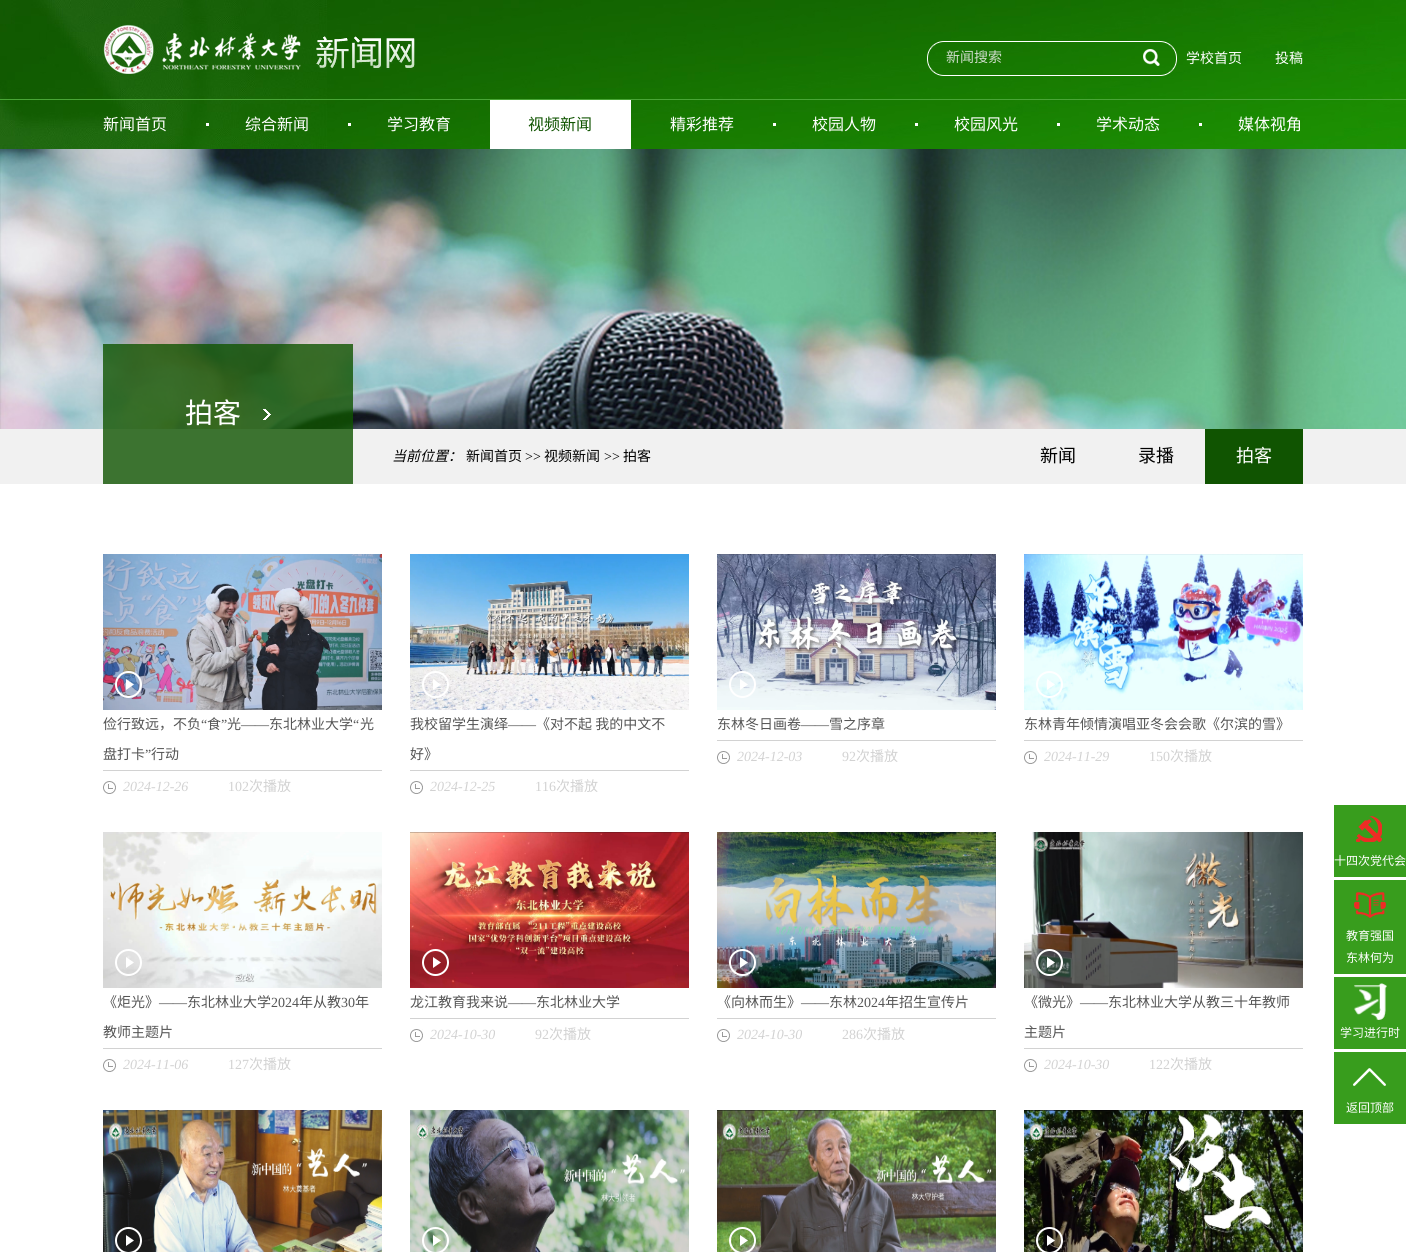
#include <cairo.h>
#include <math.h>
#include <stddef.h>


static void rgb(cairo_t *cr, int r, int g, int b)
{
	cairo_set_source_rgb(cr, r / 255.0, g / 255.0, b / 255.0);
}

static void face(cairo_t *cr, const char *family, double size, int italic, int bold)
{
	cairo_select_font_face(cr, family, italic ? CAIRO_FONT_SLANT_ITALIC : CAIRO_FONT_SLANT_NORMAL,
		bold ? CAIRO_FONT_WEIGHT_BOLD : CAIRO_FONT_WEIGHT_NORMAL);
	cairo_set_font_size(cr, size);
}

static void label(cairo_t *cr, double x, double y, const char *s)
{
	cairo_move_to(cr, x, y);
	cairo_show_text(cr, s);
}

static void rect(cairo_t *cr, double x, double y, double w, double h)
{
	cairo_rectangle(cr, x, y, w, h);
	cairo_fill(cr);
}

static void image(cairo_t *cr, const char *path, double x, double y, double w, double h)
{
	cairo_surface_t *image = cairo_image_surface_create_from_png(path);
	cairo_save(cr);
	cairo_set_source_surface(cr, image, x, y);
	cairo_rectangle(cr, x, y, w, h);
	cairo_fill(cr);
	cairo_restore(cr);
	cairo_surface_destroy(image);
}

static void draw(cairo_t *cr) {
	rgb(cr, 255, 255, 255);
	cairo_paint(cr);
	image(cr, "image0.png", 0, 0, 1406, 149);
	rgb(cr, 73, 165, 54);
	rect(cr, 0, 99, 1406, 1);
	image(cr, "image1.png", 103, 24, 312, 50);
	image(cr, "image2.png", 927, 41, 250, 35);
	face(cr, "Noto Sans CJK SC", 14, 0, 0);
	rgb(cr, 207, 221, 204);
	label(cr, 946, 62, "新闻搜索");
	image(cr, "image3.png", 1143, 49, 17, 17);
	rgb(cr, 255, 255, 255);
	label(cr, 1186, 63, "学校首页");
	label(cr, 1275, 63, "投稿");
	face(cr, "Noto Sans CJK SC", 16, 0, 0);
	label(cr, 103, 130, "新闻首页");
	rect(cr, 206, 123, 3, 3);
	label(cr, 245, 130, "综合新闻");
	rect(cr, 348, 123, 3, 3);
	label(cr, 387, 130, "学习教育");
	rect(cr, 490, 100, 141, 49);
	rgb(cr, 16, 84, 1);
	label(cr, 528, 130, "视频新闻");
	rgb(cr, 255, 255, 255);
	label(cr, 670, 130, "精彩推荐");
	rect(cr, 773, 123, 3, 3);
	label(cr, 812, 130, "校园人物");
	rect(cr, 915, 123, 3, 3);
	label(cr, 954, 130, "校园风光");
	rect(cr, 1057, 123, 3, 3);
	label(cr, 1096, 130, "学术动态");
	rect(cr, 1199, 123, 3, 3);
	label(cr, 1238, 130, "媒体视角");
	image(cr, "image4.png", 0, 149, 1406, 280);
	rgb(cr, 241, 241, 241);
	rect(cr, 0, 429, 1406, 55);
	cairo_set_source_rgba(cr, 0.063, 0.329, 0.004, 0.8);
	rect(cr, 103, 344, 250, 140);
	image(cr, "image5.png", 263, 409, 8, 11);
	face(cr, "Noto Sans CJK SC", 28, 0, 0);
	rgb(cr, 255, 255, 255);
	label(cr, 185, 423, "拍客");
	face(cr, "Noto Sans CJK SC", 14, 1, 0);
	rgb(cr, 0, 0, 0);
	label(cr, 392, 461, "当前位置：");
	face(cr, "Noto Sans CJK SC", 14, 0, 0);
	label(cr, 466, 461, "新闻首页");
	face(cr, "Liberation Serif", 14, 0, 0);
	label(cr, 525, 461, ">>");
	face(cr, "Noto Sans CJK SC", 14, 0, 0);
	label(cr, 544, 461, "视频新闻");
	face(cr, "Liberation Serif", 14, 0, 0);
	label(cr, 604, 461, ">>");
	face(cr, "Noto Sans CJK SC", 14, 0, 0);
	label(cr, 623, 461, "拍客");
	face(cr, "Noto Sans CJK SC", 18, 0, 0);
	label(cr, 1040, 462, "新闻");
	label(cr, 1138, 462, "录播");
	rgb(cr, 16, 84, 1);
	rect(cr, 1205, 429, 98, 55);
	rgb(cr, 255, 255, 255);
	label(cr, 1236, 462, "拍客");
	image(cr, "image6.png", 103, 554, 279, 156);
	image(cr, "image7.png", 115, 671, 27, 27);
	rgb(cr, 210, 210, 210);
	rect(cr, 103, 770, 279, 1);
	face(cr, "Noto Sans CJK SC", 14, 0, 0);
	rgb(cr, 85, 85, 85);
	label(cr, 103, 729, "俭行致远，不负");
	face(cr, "Liberation Serif", 14, 0, 0);
	label(cr, 201, 729, "“");
	face(cr, "Noto Sans CJK SC", 14, 0, 0);
	label(cr, 207, 729, "食");
	face(cr, "Liberation Serif", 14, 0, 0);
	label(cr, 221, 729, "”");
	face(cr, "Noto Sans CJK SC", 14, 0, 0);
	label(cr, 227, 729, "光");
	label(cr, 269, 729, "东北林业大学");
	face(cr, "Liberation Serif", 14, 0, 0);
	label(cr, 353, 729, "“");
	face(cr, "Noto Sans CJK SC", 14, 0, 0);
	label(cr, 360, 729, "光");
	face(cr, "Liberation Serif", 14, 0, 0);
	label(cr, 241, 729, "——");
	face(cr, "Noto Sans CJK SC", 14, 0, 0);
	label(cr, 103, 759, "盘打卡");
	face(cr, "Liberation Serif", 14, 0, 0);
	label(cr, 145, 759, "”");
	face(cr, "Noto Sans CJK SC", 14, 0, 0);
	label(cr, 151, 759, "行动");
	image(cr, "image8.png", 103, 781, 13, 13);
	face(cr, "Liberation Serif", 14, 1, 0);
	rgb(cr, 210, 210, 210);
	label(cr, 123, 791, "2024-12-26");
	face(cr, "Liberation Serif", 14, 0, 0);
	label(cr, 228, 791, "102");
	face(cr, "Noto Sans CJK SC", 14, 0, 0);
	label(cr, 249, 791, "次播放");
	image(cr, "image9.png", 410, 554, 279, 156);
	image(cr, "image10.png", 422, 671, 27, 27);
	rect(cr, 410, 770, 279, 1);
	rgb(cr, 85, 85, 85);
	label(cr, 410, 729, "我校留学生演绎");
	face(cr, "Liberation Serif", 14, 0, 0);
	label(cr, 508, 729, "——");
	face(cr, "Noto Sans CJK SC", 14, 0, 0);
	label(cr, 536, 729, "《对不起 我的中文不");
	label(cr, 410, 759, "好》");
	image(cr, "image8.png", 410, 781, 13, 13);
	face(cr, "Liberation Serif", 14, 1, 0);
	rgb(cr, 210, 210, 210);
	label(cr, 430, 791, "2024-12-25");
	face(cr, "Liberation Serif", 14, 0, 0);
	label(cr, 535, 791, "116");
	face(cr, "Noto Sans CJK SC", 14, 0, 0);
	label(cr, 556, 791, "次播放");
	image(cr, "image11.png", 717, 554, 279, 156);
	image(cr, "image12.png", 729, 671, 27, 27);
	rect(cr, 717, 740, 279, 1);
	rgb(cr, 85, 85, 85);
	label(cr, 717, 729, "东林冬日画卷");
	face(cr, "Liberation Serif", 14, 0, 0);
	label(cr, 801, 729, "——");
	face(cr, "Noto Sans CJK SC", 14, 0, 0);
	label(cr, 829, 729, "雪之序章");
	image(cr, "image8.png", 717, 751, 13, 13);
	face(cr, "Liberation Serif", 14, 1, 0);
	rgb(cr, 210, 210, 210);
	label(cr, 737, 761, "2024-12-03");
	face(cr, "Liberation Serif", 14, 0, 0);
	label(cr, 842, 761, "92");
	face(cr, "Noto Sans CJK SC", 14, 0, 0);
	label(cr, 856, 761, "次播放");
	image(cr, "image13.png", 1024, 554, 279, 156);
	image(cr, "image14.png", 1036, 671, 27, 27);
	rect(cr, 1024, 740, 279, 1);
	rgb(cr, 85, 85, 85);
	label(cr, 1024, 729, "东林青年倾情演唱亚冬会会歌《尔滨的雪》");
	image(cr, "image8.png", 1024, 751, 13, 13);
	face(cr, "Liberation Serif", 14, 1, 0);
	rgb(cr, 210, 210, 210);
	label(cr, 1044, 761, "2024-11-29");
	face(cr, "Liberation Serif", 14, 0, 0);
	label(cr, 1149, 761, "150");
	face(cr, "Noto Sans CJK SC", 14, 0, 0);
	label(cr, 1170, 761, "次播放");
	image(cr, "image15.png", 103, 832, 279, 156);
	image(cr, "image16.png", 115, 949, 27, 27);
	rect(cr, 103, 1048, 279, 1);
	rgb(cr, 85, 85, 85);
	label(cr, 103, 1007, "《炬光》");
	face(cr, "Liberation Serif", 14, 0, 0);
	label(cr, 159, 1007, "——");
	face(cr, "Noto Sans CJK SC", 14, 0, 0);
	label(cr, 187, 1007, "东北林业大学");
	face(cr, "Liberation Serif", 14, 0, 0);
	label(cr, 271, 1007, "2024");
	face(cr, "Noto Sans CJK SC", 14, 0, 0);
	label(cr, 299, 1007, "年从教");
	face(cr, "Liberation Serif", 14, 0, 0);
	label(cr, 341, 1007, "30");
	face(cr, "Noto Sans CJK SC", 14, 0, 0);
	label(cr, 355, 1007, "年");
	label(cr, 103, 1037, "教师主题片");
	image(cr, "image8.png", 103, 1059, 13, 13);
	face(cr, "Liberation Serif", 14, 1, 0);
	rgb(cr, 210, 210, 210);
	label(cr, 123, 1069, "2024-11-06");
	face(cr, "Liberation Serif", 14, 0, 0);
	label(cr, 228, 1069, "127");
	face(cr, "Noto Sans CJK SC", 14, 0, 0);
	label(cr, 249, 1069, "次播放");
	image(cr, "image17.png", 410, 832, 279, 156);
	image(cr, "image18.png", 422, 949, 27, 27);
	rect(cr, 410, 1018, 279, 1);
	rgb(cr, 85, 85, 85);
	label(cr, 410, 1007, "龙江教育我来说");
	face(cr, "Liberation Serif", 14, 0, 0);
	label(cr, 508, 1007, "——");
	face(cr, "Noto Sans CJK SC", 14, 0, 0);
	label(cr, 536, 1007, "东北林业大学");
	image(cr, "image8.png", 410, 1029, 13, 13);
	face(cr, "Liberation Serif", 14, 1, 0);
	rgb(cr, 210, 210, 210);
	label(cr, 430, 1039, "2024-10-30");
	face(cr, "Liberation Serif", 14, 0, 0);
	label(cr, 535, 1039, "92");
	face(cr, "Noto Sans CJK SC", 14, 0, 0);
	label(cr, 549, 1039, "次播放");
	image(cr, "image19.png", 717, 832, 279, 156);
	image(cr, "image20.png", 729, 949, 27, 27);
	rect(cr, 717, 1018, 279, 1);
	rgb(cr, 85, 85, 85);
	label(cr, 717, 1007, "《向林而生》");
	face(cr, "Liberation Serif", 14, 0, 0);
	label(cr, 801, 1007, "——");
	face(cr, "Noto Sans CJK SC", 14, 0, 0);
	label(cr, 829, 1007, "东林");
	face(cr, "Liberation Serif", 14, 0, 0);
	label(cr, 857, 1007, "2024");
	face(cr, "Noto Sans CJK SC", 14, 0, 0);
	label(cr, 885, 1007, "年招生宣传片");
	image(cr, "image8.png", 717, 1029, 13, 13);
	face(cr, "Liberation Serif", 14, 1, 0);
	rgb(cr, 210, 210, 210);
	label(cr, 737, 1039, "2024-10-30");
	face(cr, "Liberation Serif", 14, 0, 0);
	label(cr, 842, 1039, "286");
	face(cr, "Noto Sans CJK SC", 14, 0, 0);
	label(cr, 863, 1039, "次播放");
	image(cr, "image21.png", 1024, 832, 279, 156);
	image(cr, "image22.png", 1036, 949, 27, 27);
	rect(cr, 1024, 1048, 279, 1);
	rgb(cr, 85, 85, 85);
	label(cr, 1024, 1007, "《微光》");
	face(cr, "Liberation Serif", 14, 0, 0);
	label(cr, 1080, 1007, "——");
	face(cr, "Noto Sans CJK SC", 14, 0, 0);
	label(cr, 1108, 1007, "东北林业大学从教三十年教师");
	label(cr, 1024, 1037, "主题片");
	image(cr, "image8.png", 1024, 1059, 13, 13);
	face(cr, "Liberation Serif", 14, 1, 0);
	rgb(cr, 210, 210, 210);
	label(cr, 1044, 1069, "2024-10-30");
	face(cr, "Liberation Serif", 14, 0, 0);
	label(cr, 1149, 1069, "122");
	face(cr, "Noto Sans CJK SC", 14, 0, 0);
	label(cr, 1170, 1069, "次播放");
	image(cr, "image23.png", 103, 1110, 279, 142);
	image(cr, "image24.png", 115, 1227, 27, 25);
	image(cr, "image25.png", 410, 1110, 279, 142);
	image(cr, "image26.png", 422, 1227, 27, 25);
	image(cr, "image27.png", 717, 1110, 279, 142);
	image(cr, "image28.png", 729, 1227, 27, 25);
	image(cr, "image29.png", 1024, 1110, 279, 142);
	image(cr, "image30.png", 1036, 1227, 27, 25);
	rgb(cr, 56, 157, 29);
	rect(cr, 1334, 805, 72, 72);
	image(cr, "image31.png", 1356, 816, 26, 26);
	face(cr, "Noto Sans CJK SC", 12, 0, 0);
	rgb(cr, 255, 255, 255);
	label(cr, 1334, 865, "十四次党代会");
	rgb(cr, 56, 157, 29);
	rect(cr, 1334, 880, 72, 94);
	image(cr, "image32.png", 1354, 892, 32, 26);
	rgb(cr, 255, 255, 255);
	label(cr, 1346, 940, "教育强国");
	label(cr, 1346, 962, "东林何为");
	rgb(cr, 56, 157, 29);
	rect(cr, 1334, 977, 72, 72);
	image(cr, "image33.png", 1354, 983, 33, 37);
	rgb(cr, 255, 255, 255);
	label(cr, 1340, 1037, "学习进行时");
	rgb(cr, 56, 157, 29);
	rect(cr, 1334, 1052, 72, 72);
	image(cr, "image34.png", 1353, 1068, 33, 18);
	rgb(cr, 255, 255, 255);
	label(cr, 1346, 1112, "返回顶部");
}

int main(void) {
	cairo_surface_t *surface = cairo_image_surface_create(CAIRO_FORMAT_RGB24, 1406, 1252);
	cairo_t *cr = cairo_create(surface);
	cairo_font_options_t *options = cairo_font_options_create();
	cairo_font_options_set_hint_metrics(options, CAIRO_HINT_METRICS_OFF);
	cairo_font_options_set_hint_style(options, CAIRO_HINT_STYLE_NONE);
	cairo_set_font_options(cr, options);
	cairo_set_miter_limit(cr, 4);
	draw(cr);
	cairo_surface_write_to_png(surface, "render.png");
	cairo_font_options_destroy(options);
	cairo_destroy(cr);
	cairo_surface_destroy(surface);
	return 0;
}
